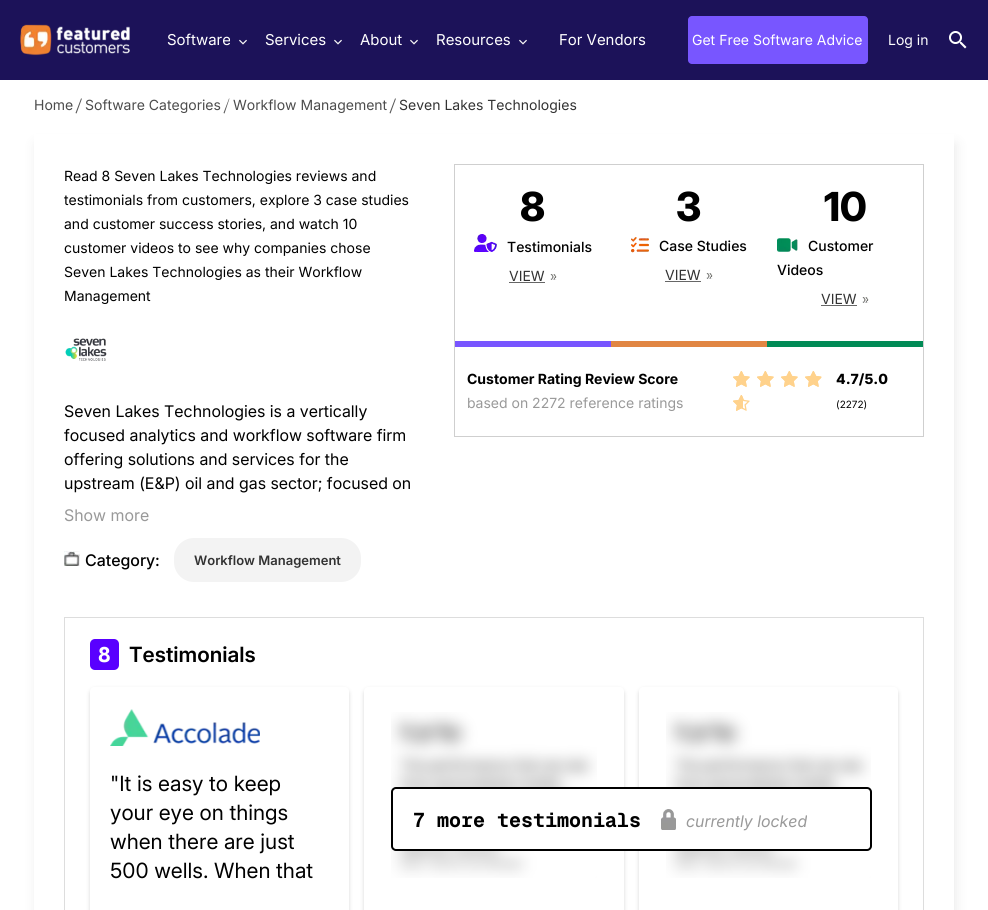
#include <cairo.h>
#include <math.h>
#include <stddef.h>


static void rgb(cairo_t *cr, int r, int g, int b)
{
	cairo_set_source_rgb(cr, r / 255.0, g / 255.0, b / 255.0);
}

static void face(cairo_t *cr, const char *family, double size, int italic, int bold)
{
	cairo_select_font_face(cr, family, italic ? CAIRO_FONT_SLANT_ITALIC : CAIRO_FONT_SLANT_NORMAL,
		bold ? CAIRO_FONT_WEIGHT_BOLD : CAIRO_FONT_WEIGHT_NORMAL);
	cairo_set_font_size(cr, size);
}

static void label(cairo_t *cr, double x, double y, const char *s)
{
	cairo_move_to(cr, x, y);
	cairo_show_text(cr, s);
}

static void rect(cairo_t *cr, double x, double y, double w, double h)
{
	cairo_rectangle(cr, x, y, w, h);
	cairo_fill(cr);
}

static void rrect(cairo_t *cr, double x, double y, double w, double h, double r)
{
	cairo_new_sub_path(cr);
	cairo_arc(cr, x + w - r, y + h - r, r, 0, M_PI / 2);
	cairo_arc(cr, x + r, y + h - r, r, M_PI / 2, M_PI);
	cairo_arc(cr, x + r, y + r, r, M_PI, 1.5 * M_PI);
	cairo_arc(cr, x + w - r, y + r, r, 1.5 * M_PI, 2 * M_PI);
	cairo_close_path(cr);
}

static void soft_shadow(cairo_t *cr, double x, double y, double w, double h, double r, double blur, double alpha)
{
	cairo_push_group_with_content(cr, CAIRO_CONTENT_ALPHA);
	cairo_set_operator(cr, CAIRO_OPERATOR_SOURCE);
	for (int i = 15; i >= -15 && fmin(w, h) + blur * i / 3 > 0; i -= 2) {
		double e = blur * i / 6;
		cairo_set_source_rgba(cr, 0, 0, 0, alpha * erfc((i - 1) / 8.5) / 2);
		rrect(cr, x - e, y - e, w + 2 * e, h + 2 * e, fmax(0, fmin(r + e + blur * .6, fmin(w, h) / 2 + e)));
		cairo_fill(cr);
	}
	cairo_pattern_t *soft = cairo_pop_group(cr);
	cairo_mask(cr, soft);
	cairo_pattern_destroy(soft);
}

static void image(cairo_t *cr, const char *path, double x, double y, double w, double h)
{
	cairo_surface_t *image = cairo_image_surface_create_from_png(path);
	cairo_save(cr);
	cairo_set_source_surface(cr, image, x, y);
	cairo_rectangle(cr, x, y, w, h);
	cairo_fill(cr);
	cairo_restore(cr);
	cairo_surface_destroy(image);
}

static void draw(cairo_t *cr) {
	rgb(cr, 255, 255, 255);
	cairo_paint(cr);
	rgb(cr, 28, 18, 89);
	rect(cr, 0, 0, 988, 80);
	image(cr, "image0.png", 20, 24, 110, 32);
	face(cr, "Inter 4", 15, 0, 0);
	rgb(cr, 255, 255, 255);
	label(cr, 167, 45, "Software");
	image(cr, "image1.png", 239, 39, 8, 6);
	label(cr, 265, 45, "Services");
	image(cr, "image1.png", 334, 39, 8, 6);
	label(cr, 360, 45, "About");
	image(cr, "image1.png", 410, 39, 8, 6);
	label(cr, 436, 45, "Resources");
	image(cr, "image1.png", 519, 39, 8, 6);
	label(cr, 559, 45, "For Vendors");
	rgb(cr, 120, 86, 255);
	rrect(cr, 688, 16, 180, 48, 4);
	cairo_fill(cr);
	face(cr, "Inter", 14, 0, 0);
	rgb(cr, 255, 255, 255);
	label(cr, 692, 45, "Get Free Software Advice");
	label(cr, 888, 45, "Log in");
	image(cr, "image2.png", 949, 31, 18, 18);
	rgb(cr, 76, 76, 76);
	label(cr, 34, 110, "Home");
	rgb(cr, 86, 86, 86);
	cairo_new_path(cr);
	cairo_move_to(cr, 81, 98.5);
	cairo_line_to(cr, 82, 98.5);
	cairo_line_to(cr, 76.5, 113.5);
	cairo_line_to(cr, 75.5, 113);
	cairo_close_path(cr);
	cairo_fill(cr);
	rgb(cr, 76, 76, 76);
	label(cr, 85, 110, "Software Categories");
	rgb(cr, 86, 86, 86);
	cairo_new_path(cr);
	cairo_move_to(cr, 229, 98.5);
	cairo_line_to(cr, 229.5, 98.5);
	cairo_line_to(cr, 224.5, 113.5);
	cairo_line_to(cr, 223.5, 113);
	cairo_close_path(cr);
	cairo_fill(cr);
	rgb(cr, 76, 76, 76);
	label(cr, 233, 110, "Workflow Management");
	rgb(cr, 86, 86, 86);
	cairo_new_path(cr);
	cairo_move_to(cr, 395, 98.5);
	cairo_line_to(cr, 396, 98.5);
	cairo_line_to(cr, 390.5, 113.5);
	cairo_line_to(cr, 389.5, 113);
	cairo_close_path(cr);
	cairo_fill(cr);
	rgb(cr, 50, 50, 50);
	label(cr, 399, 110, "Seven Lakes Technologies");
	cairo_save(cr);
	cairo_set_fill_rule(cr, CAIRO_FILL_RULE_EVEN_ODD);
	cairo_new_path(cr);
	cairo_move_to(cr, 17, 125);
	cairo_line_to(cr, 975, 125);
	cairo_line_to(cr, 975, 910);
	cairo_line_to(cr, 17, 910);
	cairo_close_path(cr);
	cairo_move_to(cr, 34, 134);
	cairo_line_to(cr, 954, 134);
	cairo_line_to(cr, 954, 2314);
	cairo_line_to(cr, 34, 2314);
	cairo_close_path(cr);
	cairo_clip(cr);
	rgb(cr, 50, 50, 50);
	soft_shadow(cr, 36, 144, 920, 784, 0, 6, 0.1);
	cairo_restore(cr);
	rgb(cr, 0, 0, 0);
	label(cr, 64, 181, "Read 8 Seven Lakes Technologies reviews and");
	label(cr, 64, 205, "testimonials from customers, explore 3 case studies");
	label(cr, 64, 229, "and customer success stories, and watch 10");
	label(cr, 64, 253, "customer videos to see why companies chose");
	label(cr, 64, 277, "Seven Lakes Technologies as their Workflow");
	label(cr, 64, 301, "Management");
	image(cr, "image3.png", 65, 338, 42, 23);
	face(cr, "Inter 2", 16, 0, 0);
	label(cr, 64, 417, "Seven Lakes Technologies is a vertically");
	label(cr, 64, 441, "focused analytics and workflow software firm");
	label(cr, 64, 465, "offering solutions and services for the");
	label(cr, 64, 489, "upstream (E&P) oil and gas sector; focused on");
	rgb(cr, 153, 153, 153);
	label(cr, 64, 521, "Show more");
	image(cr, "image4.png", 64, 551, 16, 15);
	face(cr, "Inter Medium", 16, 0, 0);
	rgb(cr, 0, 0, 0);
	label(cr, 85, 566, "Category:");
	rgb(cr, 243, 243, 243);
	rrect(cr, 174, 538, 187, 44, 20);
	cairo_fill(cr);
	face(cr, "Inter SemiBold", 13, 0, 0);
	rgb(cr, 50, 50, 50);
	label(cr, 194, 565, "Workflow Management");
	cairo_rectangle(cr, 454.5, 164.5, 469, 272);
	rgb(cr, 207, 207, 207);
	cairo_set_line_width(cr, 1);
	cairo_stroke(cr);
	rgb(cr, 120, 85, 255);
	rect(cr, 455, 341, 156, 6);
	face(cr, "Inter ExtraBold", 40, 0, 0);
	rgb(cr, 0, 0, 0);
	label(cr, 520, 221, "8");
	image(cr, "image5.png", 474, 234, 23, 18);
	face(cr, "Inter 2 Medium", 14, 0, 0);
	label(cr, 507, 252, "Testimonials");
	face(cr, "Inter", 14, 0, 0);
	rgb(cr, 50, 50, 50);
	label(cr, 509, 281, "VIEW");
	rgb(cr, 102, 102, 102);
	rect(cr, 509, 282, 36, 1);
	image(cr, "image6.png", 550, 274, 7, 6);
	rgb(cr, 225, 134, 67);
	rect(cr, 611, 341, 156, 6);
	face(cr, "Inter ExtraBold", 40, 0, 0);
	rgb(cr, 0, 0, 0);
	label(cr, 676, 221, "3");
	image(cr, "image7.png", 631, 237, 18, 16);
	face(cr, "Inter 2 Medium", 14, 0, 0);
	label(cr, 659, 251, "Case Studies");
	face(cr, "Inter", 14, 0, 0);
	rgb(cr, 50, 50, 50);
	label(cr, 665, 280, "VIEW");
	rgb(cr, 102, 102, 102);
	rect(cr, 665, 281, 36, 1);
	image(cr, "image6.png", 706, 273, 7, 6);
	rgb(cr, 1, 139, 86);
	rect(cr, 767, 341, 156, 6);
	face(cr, "Inter ExtraBold", 40, 0, 0);
	rgb(cr, 0, 0, 0);
	label(cr, 824, 221, "10");
	image(cr, "image8.png", 777, 238, 21, 14);
	face(cr, "Inter 2 Medium", 14, 0, 0);
	label(cr, 808, 251, "Customer");
	label(cr, 777, 275, "Videos");
	face(cr, "Inter", 14, 0, 0);
	rgb(cr, 50, 50, 50);
	label(cr, 821, 304, "VIEW");
	rgb(cr, 102, 102, 102);
	rect(cr, 821, 305, 36, 1);
	image(cr, "image6.png", 862, 297, 7, 6);
	face(cr, "Inter", 14, 0, 1);
	rgb(cr, 0, 0, 0);
	label(cr, 467, 384, "Customer Rating Review Score");
	face(cr, "Inter", 14, 0, 0);
	rgb(cr, 153, 153, 153);
	label(cr, 467, 408, "based on 2272 reference ratings");
	image(cr, "image9.png", 733, 371, 17, 16);
	image(cr, "image10.png", 733, 371, 17, 16);
	image(cr, "image9.png", 757, 371, 17, 16);
	image(cr, "image10.png", 757, 371, 17, 16);
	image(cr, "image9.png", 781, 371, 17, 16);
	image(cr, "image10.png", 781, 371, 17, 16);
	image(cr, "image9.png", 805, 371, 17, 16);
	image(cr, "image11.png", 805, 371, 16, 16);
	image(cr, "image9.png", 733, 395, 17, 16);
	image(cr, "image12.png", 733, 395, 10, 16);
	face(cr, "Inter 2 ExtraBold", 14, 0, 0);
	rgb(cr, 0, 0, 0);
	label(cr, 836, 384, "4.7/5.0");
	face(cr, "Inter", 10, 0, 0);
	label(cr, 836, 408, "(2272)");
	rgb(cr, 221, 221, 221);
	rect(cr, 64, 617, 860, 1);
	cairo_new_path(cr);
	cairo_move_to(cr, 924, 617);
	cairo_line_to(cr, 924, 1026);
	cairo_line_to(cr, 923, 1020);
	cairo_line_to(cr, 923, 618);
	cairo_close_path(cr);
	cairo_fill(cr);
	cairo_new_path(cr);
	cairo_move_to(cr, 64, 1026);
	cairo_line_to(cr, 64, 617);
	cairo_line_to(cr, 65, 618);
	cairo_line_to(cr, 65, 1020);
	cairo_close_path(cr);
	cairo_fill(cr);
	rgb(cr, 89, 0, 255);
	rrect(cr, 90, 639, 29, 31, 5);
	cairo_fill(cr);
	face(cr, "Geist Mono", 21, 0, 1);
	rgb(cr, 255, 255, 255);
	label(cr, 98, 662, "8");
	face(cr, "Inter 2 SemiBold", 21, 0, 0);
	rgb(cr, 0, 0, 0);
	label(cr, 129, 662, "Testimonials");
	cairo_save(cr);
	cairo_set_fill_rule(cr, CAIRO_FILL_RULE_EVEN_ODD);
	cairo_new_path(cr);
	cairo_move_to(cr, 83, 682);
	cairo_line_to(cr, 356, 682);
	cairo_line_to(cr, 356, 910);
	cairo_line_to(cr, 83, 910);
	cairo_close_path(cr);
	cairo_move_to(cr, 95, 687);
	cairo_line_to(cr, 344, 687);
	cairo_curve_to(cr, 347, 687, 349, 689, 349, 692);
	cairo_line_to(cr, 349, 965);
	cairo_curve_to(cr, 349, 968, 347, 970, 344, 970);
	cairo_line_to(cr, 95, 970);
	cairo_curve_to(cr, 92, 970, 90, 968, 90, 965);
	cairo_line_to(cr, 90, 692);
	cairo_curve_to(cr, 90, 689, 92, 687, 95, 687);
	cairo_close_path(cr);
	cairo_clip(cr);
	rgb(cr, 216, 216, 216);
	soft_shadow(cr, 90, 689, 259, 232, 5, 2, 1);
	cairo_restore(cr);
	image(cr, "image13.png", 110, 709, 150, 37);
	face(cr, "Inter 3", 21, 0, 0);
	label(cr, 110, 791, "\"It is easy to keep");
	label(cr, 110, 820, "your eye on things");
	label(cr, 110, 849, "when there are just");
	label(cr, 110, 878, "500 wells. When that");
	cairo_save(cr);
	cairo_set_fill_rule(cr, CAIRO_FILL_RULE_EVEN_ODD);
	cairo_new_path(cr);
	cairo_move_to(cr, 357, 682);
	cairo_line_to(cr, 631, 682);
	cairo_line_to(cr, 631, 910);
	cairo_line_to(cr, 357, 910);
	cairo_close_path(cr);
	cairo_move_to(cr, 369, 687);
	cairo_line_to(cr, 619, 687);
	cairo_curve_to(cr, 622, 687, 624, 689, 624, 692);
	cairo_line_to(cr, 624, 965);
	cairo_curve_to(cr, 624, 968, 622, 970, 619, 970);
	cairo_line_to(cr, 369, 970);
	cairo_curve_to(cr, 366, 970, 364, 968, 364, 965);
	cairo_line_to(cr, 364, 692);
	cairo_curve_to(cr, 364, 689, 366, 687, 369, 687);
	cairo_close_path(cr);
	cairo_clip(cr);
	rgb(cr, 216, 216, 216);
	soft_shadow(cr, 364, 689, 260, 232, 5, 2, 1);
	cairo_restore(cr);
	image(cr, "image14.png", 391, 712, 206, 166);
	cairo_save(cr);
	cairo_set_fill_rule(cr, CAIRO_FILL_RULE_EVEN_ODD);
	cairo_new_path(cr);
	cairo_move_to(cr, 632, 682);
	cairo_line_to(cr, 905, 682);
	cairo_line_to(cr, 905, 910);
	cairo_line_to(cr, 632, 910);
	cairo_close_path(cr);
	cairo_move_to(cr, 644, 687);
	cairo_line_to(cr, 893, 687);
	cairo_curve_to(cr, 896, 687, 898, 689, 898, 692);
	cairo_line_to(cr, 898, 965);
	cairo_curve_to(cr, 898, 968, 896, 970, 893, 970);
	cairo_line_to(cr, 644, 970);
	cairo_curve_to(cr, 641, 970, 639, 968, 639, 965);
	cairo_line_to(cr, 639, 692);
	cairo_curve_to(cr, 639, 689, 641, 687, 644, 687);
	cairo_close_path(cr);
	cairo_clip(cr);
	rgb(cr, 216, 216, 216);
	soft_shadow(cr, 639, 689, 259, 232, 5, 2, 1);
	cairo_restore(cr);
	image(cr, "image15.png", 666, 712, 205, 166);
	rgb(cr, 255, 255, 255);
	rrect(cr, 392, 788, 479, 62, 4);
	cairo_fill_preserve(cr);
	rgb(cr, 0, 0, 0);
	cairo_set_line_width(cr, 2);
	cairo_stroke(cr);
	face(cr, "Geist Mono", 20, 0, 1);
	label(cr, 413, 827, "7 more testimonials");
	image(cr, "image16.png", 661, 809, 15, 21);
	face(cr, "Inter", 16, 1, 0);
	rgb(cr, 153, 153, 153);
	label(cr, 686, 827, "currently locked");
}

int main(void) {
	cairo_surface_t *surface = cairo_image_surface_create(CAIRO_FORMAT_RGB24, 988, 910);
	cairo_t *cr = cairo_create(surface);
	cairo_font_options_t *options = cairo_font_options_create();
	cairo_font_options_set_hint_metrics(options, CAIRO_HINT_METRICS_OFF);
	cairo_font_options_set_hint_style(options, CAIRO_HINT_STYLE_NONE);
	cairo_set_font_options(cr, options);
	cairo_set_miter_limit(cr, 4);
	draw(cr);
	cairo_surface_write_to_png(surface, "render.png");
	cairo_font_options_destroy(options);
	cairo_destroy(cr);
	cairo_surface_destroy(surface);
	return 0;
}
